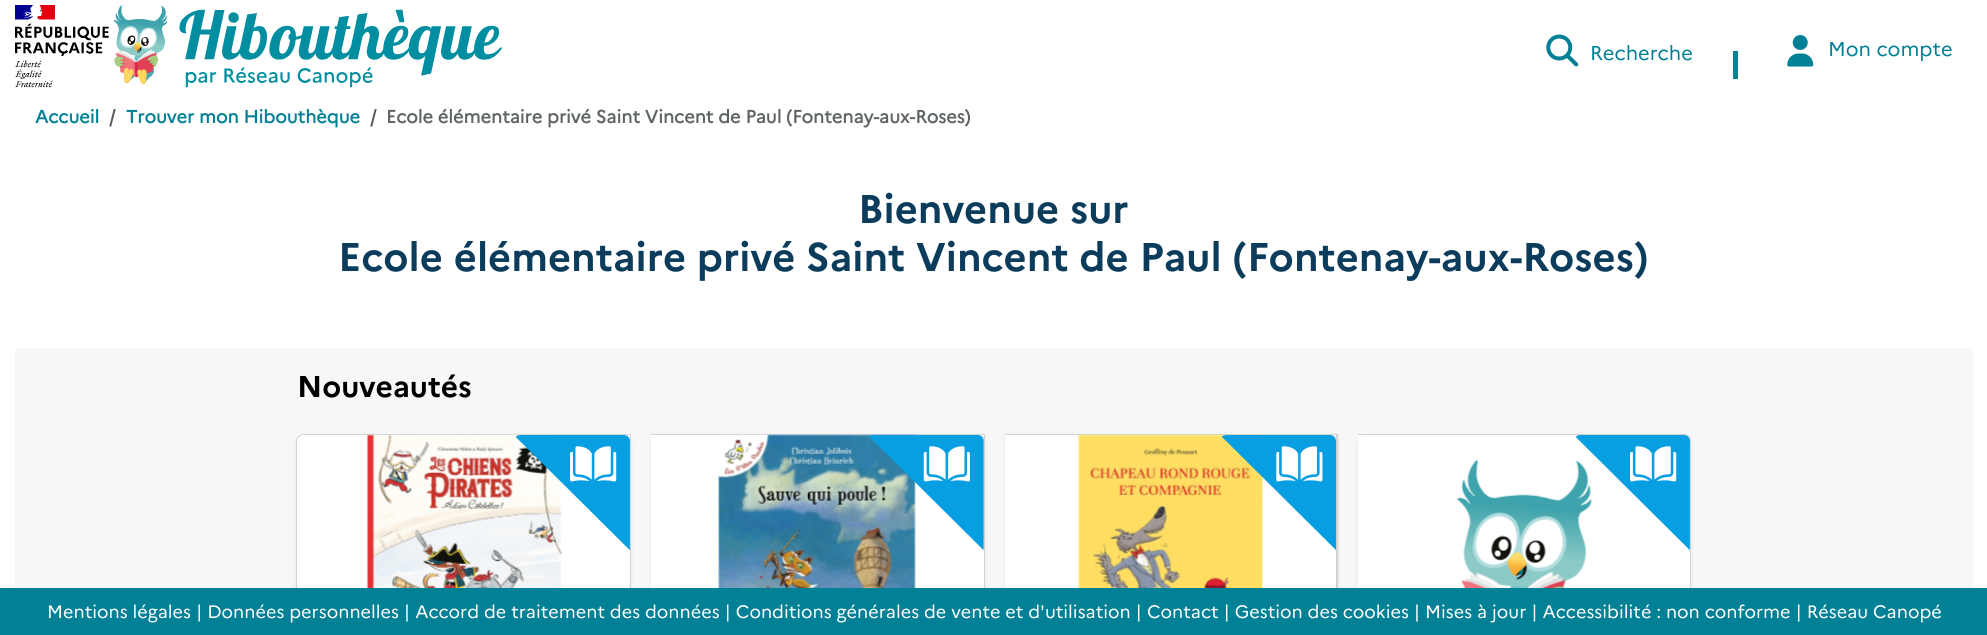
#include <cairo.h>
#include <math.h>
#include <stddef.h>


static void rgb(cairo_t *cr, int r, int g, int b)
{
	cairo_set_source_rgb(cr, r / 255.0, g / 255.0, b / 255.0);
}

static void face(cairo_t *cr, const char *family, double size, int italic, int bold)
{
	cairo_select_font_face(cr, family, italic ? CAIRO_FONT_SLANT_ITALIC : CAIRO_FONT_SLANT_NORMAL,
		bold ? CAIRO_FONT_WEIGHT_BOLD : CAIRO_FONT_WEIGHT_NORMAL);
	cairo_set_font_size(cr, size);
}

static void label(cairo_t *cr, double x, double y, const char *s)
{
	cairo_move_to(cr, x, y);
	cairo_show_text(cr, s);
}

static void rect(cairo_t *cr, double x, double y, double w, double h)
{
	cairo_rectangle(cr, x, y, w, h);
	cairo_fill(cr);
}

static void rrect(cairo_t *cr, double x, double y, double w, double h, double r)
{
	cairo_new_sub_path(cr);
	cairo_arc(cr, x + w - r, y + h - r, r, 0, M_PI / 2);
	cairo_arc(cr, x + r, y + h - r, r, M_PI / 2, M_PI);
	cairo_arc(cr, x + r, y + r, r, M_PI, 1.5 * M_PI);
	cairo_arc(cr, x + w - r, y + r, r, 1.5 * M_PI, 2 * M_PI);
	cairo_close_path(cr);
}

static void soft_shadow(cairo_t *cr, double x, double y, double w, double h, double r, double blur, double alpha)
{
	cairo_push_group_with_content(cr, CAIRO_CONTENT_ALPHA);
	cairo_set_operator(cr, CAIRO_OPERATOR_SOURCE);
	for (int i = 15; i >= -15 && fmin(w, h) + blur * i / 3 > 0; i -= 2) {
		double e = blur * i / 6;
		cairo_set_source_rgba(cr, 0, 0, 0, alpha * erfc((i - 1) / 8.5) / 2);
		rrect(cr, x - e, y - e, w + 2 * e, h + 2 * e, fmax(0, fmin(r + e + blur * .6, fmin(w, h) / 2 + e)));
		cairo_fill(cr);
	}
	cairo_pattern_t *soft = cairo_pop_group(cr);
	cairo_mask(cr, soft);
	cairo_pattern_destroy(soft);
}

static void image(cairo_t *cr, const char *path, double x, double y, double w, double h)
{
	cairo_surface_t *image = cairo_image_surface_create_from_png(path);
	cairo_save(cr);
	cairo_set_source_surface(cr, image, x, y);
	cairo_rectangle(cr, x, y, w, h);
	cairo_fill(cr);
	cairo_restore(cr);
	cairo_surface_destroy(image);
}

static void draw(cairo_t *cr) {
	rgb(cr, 255, 255, 255);
	cairo_paint(cr);
	image(cr, "image0.png", 15, 5, 94, 83);
	image(cr, "image1.png", 114, 5, 389, 83);
	image(cr, "image2.png", 1546, 34, 33, 33);
	face(cr, "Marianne", 20, 0, 0);
	rgb(cr, 2, 128, 150);
	label(cr, 1590, 60, "Recherche");
	rect(cr, 1733, 51, 5, 28);
	image(cr, "image3.png", 1787, 35, 27, 32);
	label(cr, 1828, 56, "Mon compte");
	face(cr, "Marianne", 18, 0, 1);
	label(cr, 35, 123, "Accueil");
	rgb(cr, 89, 92, 95);
	label(cr, 109, 123, "/");
	rgb(cr, 2, 128, 150);
	label(cr, 126, 123, "Trouver mon Hibouthèque");
	rgb(cr, 89, 92, 95);
	label(cr, 370, 123, "/");
	rgb(cr, 94, 99, 99);
	label(cr, 386, 123, "Ecole élémentaire privé Saint Vincent de Paul (Fontenay-aux-Roses)");
	face(cr, "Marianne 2", 40, 0, 1);
	rgb(cr, 11, 60, 92);
	label(cr, 858, 223, "Bienvenue sur");
	label(cr, 338, 271, "Ecole élémentaire privé Saint Vincent de Paul (Fontenay-aux-Roses)");
	rgb(cr, 247, 247, 247);
	rect(cr, 15, 348, 1958, 240);
	face(cr, "Marianne 2", 30, 0, 1);
	rgb(cr, 0, 0, 0);
	label(cr, 297, 397, "Nouveautés");
	rgb(cr, 0, 0, 0);
	soft_shadow(cr, 296, 436, 335, 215, 8, 2.5, 0.07);
	rgb(cr, 255, 255, 255);
	cairo_new_path(cr);
	cairo_move_to(cr, 304, 434);
	cairo_line_to(cr, 631, 434);
	cairo_line_to(cr, 631, 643);
	cairo_line_to(cr, 304, 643);
	cairo_curve_to(cr, 299.5, 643, 296, 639.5, 296, 635);
	cairo_line_to(cr, 296, 442);
	cairo_curve_to(cr, 296, 437.5, 299.5, 434, 304, 434);
	cairo_close_path(cr);
	cairo_fill(cr);
	cairo_new_path(cr);
	cairo_move_to(cr, 304, 434.5);
	cairo_line_to(cr, 630.5, 434.5);
	cairo_line_to(cr, 630.5, 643.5);
	cairo_line_to(cr, 304, 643.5);
	cairo_curve_to(cr, 300, 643.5, 296.5, 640, 296.5, 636);
	cairo_line_to(cr, 296.5, 442);
	cairo_curve_to(cr, 296.5, 438, 300, 434.5, 304, 434.5);
	cairo_close_path(cr);
	cairo_set_source_rgba(cr, 0, 0, 0, 0.18);
	cairo_set_line_width(cr, 1);
	cairo_stroke(cr);
	rgb(cr, 255, 255, 255);
	cairo_new_path(cr);
	cairo_move_to(cr, 304, 435);
	cairo_line_to(cr, 630, 435);
	cairo_line_to(cr, 630, 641);
	cairo_line_to(cr, 298, 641);
	cairo_line_to(cr, 298, 441);
	cairo_curve_to(cr, 298, 437.5, 300.5, 435, 304, 435);
	cairo_close_path(cr);
	cairo_fill(cr);
	image(cr, "image4.png", 367, 434, 195, 154);
	image(cr, "image5.png", 515, 435, 115, 115);
	rgb(cr, 0, 0, 0);
	soft_shadow(cr, 651, 436, 334, 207, 0, 2.5, 0.07);
	rgb(cr, 255, 255, 255);
	rect(cr, 651, 434, 334, 154);
	rgb(cr, 210, 210, 210);
	cairo_new_path(cr);
	cairo_move_to(cr, 651, 434);
	cairo_line_to(cr, 985, 434);
	cairo_line_to(cr, 984, 435);
	cairo_line_to(cr, 651, 435);
	cairo_close_path(cr);
	cairo_fill(cr);
	cairo_set_source_rgba(cr, 0, 0, 0, 0.18);
	cairo_new_path(cr);
	cairo_move_to(cr, 985, 434);
	cairo_line_to(cr, 985, 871);
	cairo_line_to(cr, 984, 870);
	cairo_line_to(cr, 984, 435);
	cairo_close_path(cr);
	cairo_fill(cr);
	image(cr, "image6.png", 718, 434, 198, 154);
	image(cr, "image7.png", 869, 435, 115, 115);
	rgb(cr, 0, 0, 0);
	soft_shadow(cr, 1005, 436, 333, 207, 0, 2.5, 0.07);
	rgb(cr, 255, 255, 255);
	rect(cr, 1005, 434, 333, 154);
	rgb(cr, 210, 210, 210);
	cairo_new_path(cr);
	cairo_move_to(cr, 1005, 434);
	cairo_line_to(cr, 1338, 434);
	cairo_line_to(cr, 1336, 435);
	cairo_line_to(cr, 1005, 435);
	cairo_close_path(cr);
	cairo_fill(cr);
	cairo_set_source_rgba(cr, 0, 0, 0, 0.18);
	cairo_new_path(cr);
	cairo_move_to(cr, 1338, 434);
	cairo_line_to(cr, 1338, 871);
	cairo_line_to(cr, 1336, 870);
	cairo_line_to(cr, 1336, 435);
	cairo_close_path(cr);
	cairo_fill(cr);
	image(cr, "image8.png", 1078, 434, 185, 154);
	image(cr, "image9.png", 1221, 435, 115, 115);
	rgb(cr, 0, 0, 0);
	soft_shadow(cr, 1358, 436, 333, 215, 8, 2.5, 0.07);
	rgb(cr, 255, 255, 255);
	cairo_new_path(cr);
	cairo_move_to(cr, 1358, 434);
	cairo_line_to(cr, 1683, 434);
	cairo_curve_to(cr, 1687.5, 434, 1691, 437.5, 1691, 442);
	cairo_line_to(cr, 1691, 635);
	cairo_curve_to(cr, 1691, 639.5, 1687.5, 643, 1683, 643);
	cairo_line_to(cr, 1358, 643);
	cairo_close_path(cr);
	cairo_fill(cr);
	cairo_set_source_rgba(cr, 0, 0, 0, 0.18);
	cairo_set_fill_rule(cr, CAIRO_FILL_RULE_EVEN_ODD);
	cairo_new_path(cr);
	cairo_move_to(cr, 1358, 434);
	cairo_line_to(cr, 1684, 434);
	cairo_curve_to(cr, 1688, 434, 1691, 437, 1691, 441);
	cairo_line_to(cr, 1691, 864);
	cairo_curve_to(cr, 1691, 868, 1688, 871, 1684, 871);
	cairo_line_to(cr, 1358, 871);
	cairo_close_path(cr);
	cairo_move_to(cr, 1358, 435);
	cairo_line_to(cr, 1684, 435);
	cairo_curve_to(cr, 1687, 435, 1690, 438, 1690, 441);
	cairo_line_to(cr, 1690, 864);
	cairo_curve_to(cr, 1690, 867, 1687, 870, 1684, 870);
	cairo_line_to(cr, 1358, 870);
	cairo_close_path(cr);
	cairo_fill(cr);
	rgb(cr, 255, 255, 255);
	cairo_new_path(cr);
	cairo_move_to(cr, 1358, 435);
	cairo_line_to(cr, 1684, 435);
	cairo_curve_to(cr, 1687.5, 435, 1690, 437.5, 1690, 441);
	cairo_line_to(cr, 1690, 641);
	cairo_line_to(cr, 1358, 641);
	cairo_close_path(cr);
	cairo_fill(cr);
	image(cr, "image10.png", 1456, 459, 136, 129);
	image(cr, "image11.png", 1575, 435, 115, 115);
	rgb(cr, 2, 128, 150);
	rect(cr, 0, 588, 1987, 47);
	face(cr, "Marianne", 18, 0, 0);
	rgb(cr, 255, 255, 255);
	label(cr, 47, 618, "Mentions légales | Données personnelles | Accord de traitement des données | Conditions générales de vente et d'utilisation | Contact | Gestion des cookies | Mises à jour | Accessibilité : non conforme | Réseau Canopé");
}

int main(void) {
	cairo_surface_t *surface = cairo_image_surface_create(CAIRO_FORMAT_RGB24, 1987, 635);
	cairo_t *cr = cairo_create(surface);
	cairo_font_options_t *options = cairo_font_options_create();
	cairo_font_options_set_hint_metrics(options, CAIRO_HINT_METRICS_OFF);
	cairo_font_options_set_hint_style(options, CAIRO_HINT_STYLE_NONE);
	cairo_set_font_options(cr, options);
	cairo_set_miter_limit(cr, 4);
	draw(cr);
	cairo_surface_write_to_png(surface, "render.png");
	cairo_font_options_destroy(options);
	cairo_destroy(cr);
	cairo_surface_destroy(surface);
	return 0;
}
